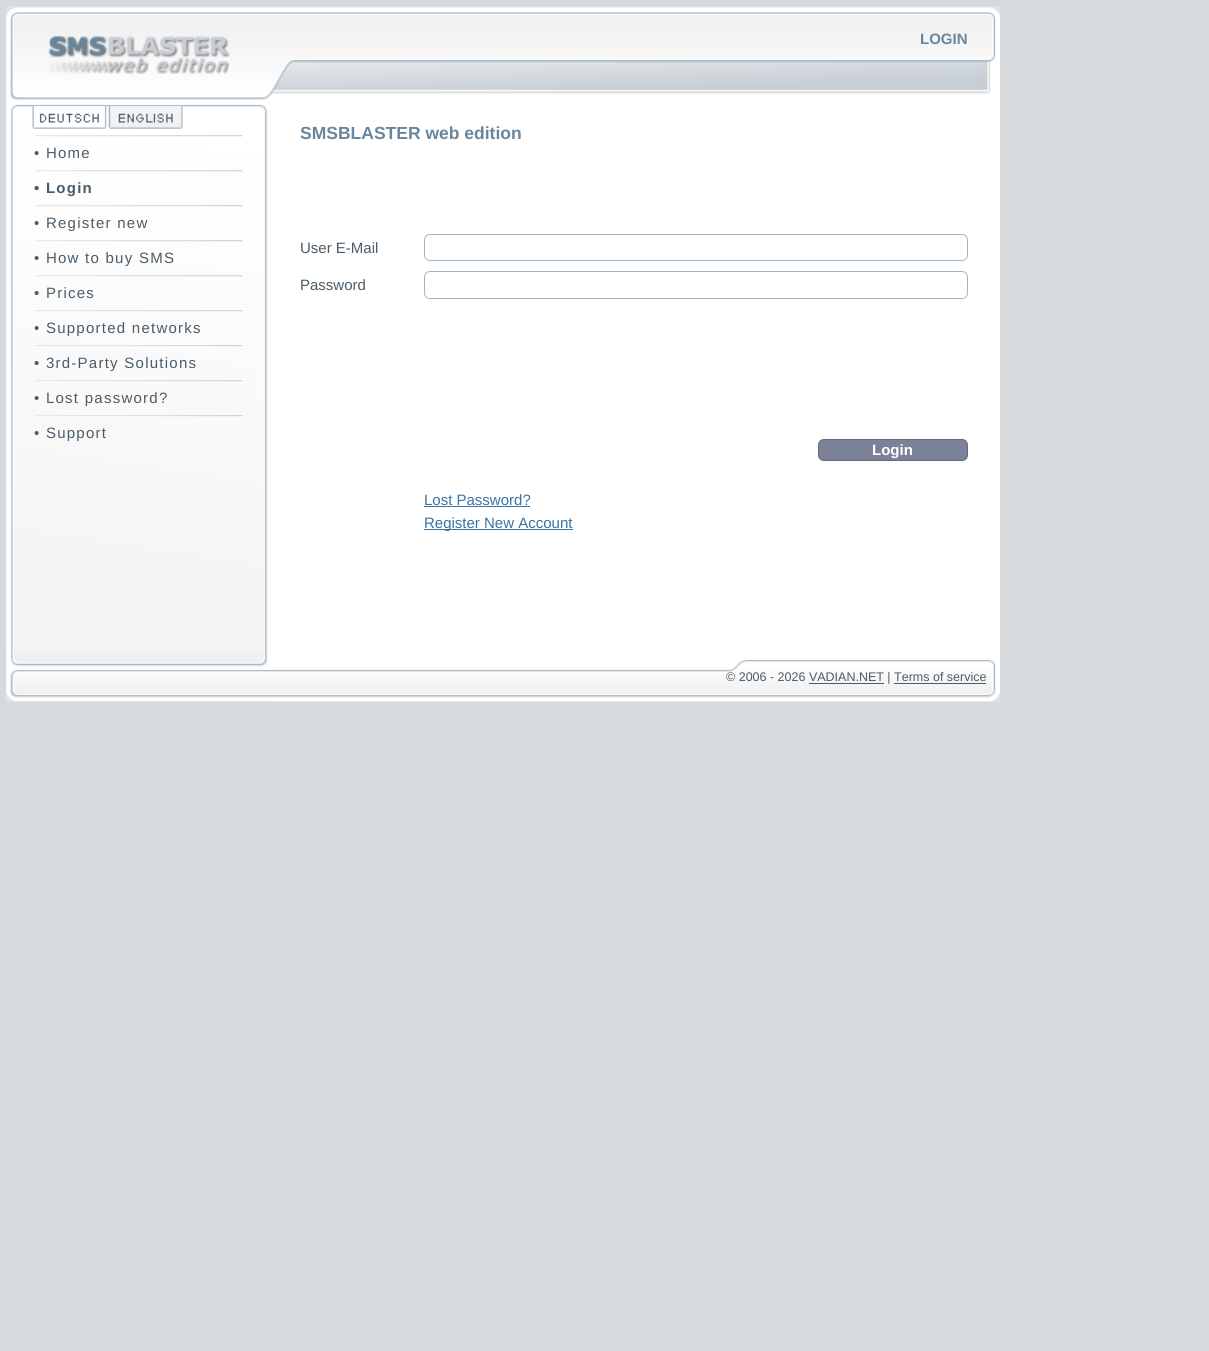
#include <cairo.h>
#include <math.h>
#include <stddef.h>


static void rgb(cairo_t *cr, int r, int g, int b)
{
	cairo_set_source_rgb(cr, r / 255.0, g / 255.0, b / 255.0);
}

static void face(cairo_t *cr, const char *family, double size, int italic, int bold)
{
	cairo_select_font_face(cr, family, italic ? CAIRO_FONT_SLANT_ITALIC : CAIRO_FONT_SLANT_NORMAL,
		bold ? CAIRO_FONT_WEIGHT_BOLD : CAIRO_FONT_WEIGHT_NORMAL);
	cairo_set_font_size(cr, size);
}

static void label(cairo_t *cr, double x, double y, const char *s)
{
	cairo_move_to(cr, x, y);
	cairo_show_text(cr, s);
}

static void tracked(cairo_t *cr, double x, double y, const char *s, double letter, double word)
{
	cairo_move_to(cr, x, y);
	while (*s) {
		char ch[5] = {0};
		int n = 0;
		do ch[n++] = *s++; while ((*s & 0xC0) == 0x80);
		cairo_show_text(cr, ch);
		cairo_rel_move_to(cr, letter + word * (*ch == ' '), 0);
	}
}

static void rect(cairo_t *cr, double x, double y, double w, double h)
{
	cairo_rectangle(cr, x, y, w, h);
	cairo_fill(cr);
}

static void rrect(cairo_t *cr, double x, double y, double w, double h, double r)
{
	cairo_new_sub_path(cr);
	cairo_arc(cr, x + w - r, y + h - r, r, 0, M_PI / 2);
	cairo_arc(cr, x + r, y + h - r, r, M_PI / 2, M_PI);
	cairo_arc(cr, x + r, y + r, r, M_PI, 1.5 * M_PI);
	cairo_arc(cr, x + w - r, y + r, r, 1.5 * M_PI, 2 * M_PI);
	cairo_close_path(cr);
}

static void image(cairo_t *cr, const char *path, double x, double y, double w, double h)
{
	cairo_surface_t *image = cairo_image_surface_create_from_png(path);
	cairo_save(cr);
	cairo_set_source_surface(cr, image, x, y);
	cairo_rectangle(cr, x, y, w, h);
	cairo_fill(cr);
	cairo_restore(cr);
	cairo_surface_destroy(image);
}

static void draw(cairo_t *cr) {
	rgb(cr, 215, 218, 220);
	cairo_paint(cr);
	image(cr, "image0.png", 6, 6, 994, 696);
	face(cr, "Liberation Sans", 15, 0, 1);
	rgb(cr, 106, 134, 156);
	label(cr, 920, 44, "LOGIN");
	image(cr, "image1.png", 32, 106, 75, 23);
	image(cr, "image2.png", 108, 106, 75, 23);
	image(cr, "image3.png", 35, 135, 208, 2);
	face(cr, "Liberation Sans", 15, 0, 0);
	rgb(cr, 75, 91, 103);
	tracked(cr, 34, 158, "• Home", 1.25, 0);
	image(cr, "image4.png", 35, 170, 208, 2);
	face(cr, "Liberation Sans", 15, 0, 1);
	tracked(cr, 34, 193, "• Login", 1.25, 0);
	image(cr, "image4.png", 35, 205, 208, 2);
	face(cr, "Liberation Sans", 15, 0, 0);
	tracked(cr, 34, 228, "• Register new", 1.25, 0);
	image(cr, "image5.png", 35, 240, 208, 2);
	tracked(cr, 34, 263, "• How to buy SMS", 1.25, 0);
	image(cr, "image5.png", 35, 275, 208, 2);
	tracked(cr, 34, 298, "• Prices", 1.25, 0);
	image(cr, "image6.png", 35, 310, 208, 2);
	tracked(cr, 34, 333, "• Supported networks", 1.25, 0);
	image(cr, "image7.png", 35, 345, 208, 2);
	tracked(cr, 34, 368, "• 3rd-Party Solutions", 1.25, 0);
	image(cr, "image8.png", 35, 380, 208, 2);
	tracked(cr, 34, 403, "• Lost password?", 1.25, 0);
	image(cr, "image9.png", 35, 415, 208, 2);
	tracked(cr, 34, 438, "• Support", 1.25, 0);
	face(cr, "Liberation Sans", 17.5, 0, 1);
	rgb(cr, 106, 134, 156);
	label(cr, 300, 139, "SMSBLASTER web edition");
	face(cr, "Liberation Sans", 15, 0, 0);
	rgb(cr, 75, 91, 103);
	label(cr, 300, 253, "User E-Mail");
	rrect(cr, 424.5, 234.5, 543, 26, 5.5);
	rgb(cr, 162, 180, 194);
	cairo_set_line_width(cr, 1);
	cairo_stroke(cr);
	rgb(cr, 75, 91, 103);
	label(cr, 300, 290, "Password");
	rrect(cr, 424.5, 271.5, 543, 27, 5.5);
	rgb(cr, 162, 180, 194);
	cairo_stroke(cr);
	rgb(cr, 123, 130, 152);
	rrect(cr, 818.5, 439.5, 149, 21, 5.5);
	cairo_fill_preserve(cr);
	rgb(cr, 99, 105, 122);
	cairo_stroke(cr);
	face(cr, "Liberation Sans", 15, 0, 1);
	rgb(cr, 255, 255, 255);
	label(cr, 872, 455, "Login");
	face(cr, "Liberation Sans", 15, 0, 0);
	rgb(cr, 56, 115, 163);
	label(cr, 424, 505, "Lost Password?");
	rect(cr, 424, 506, 106, 1);
	rect(cr, 424, 529, 149, 1);
	label(cr, 424, 528, "Register New Account");
	image(cr, "image10.png", 6, 653, 994, 49);
	face(cr, "Liberation Sans", 12.5, 0, 0);
	rgb(cr, 75, 91, 103);
	label(cr, 726, 681, "© 2006 - 2026 VADIAN.NET | Terms of service");
	rect(cr, 809, 683, 75, 1);
	rect(cr, 894, 683, 92, 1);
}

int main(void) {
	cairo_surface_t *surface = cairo_image_surface_create(CAIRO_FORMAT_RGB24, 1209, 1351);
	cairo_t *cr = cairo_create(surface);
	cairo_font_options_t *options = cairo_font_options_create();
	cairo_font_options_set_hint_metrics(options, CAIRO_HINT_METRICS_OFF);
	cairo_font_options_set_hint_style(options, CAIRO_HINT_STYLE_NONE);
	cairo_set_font_options(cr, options);
	cairo_set_miter_limit(cr, 4);
	draw(cr);
	cairo_surface_write_to_png(surface, "render.png");
	cairo_font_options_destroy(options);
	cairo_destroy(cr);
	cairo_surface_destroy(surface);
	return 0;
}
